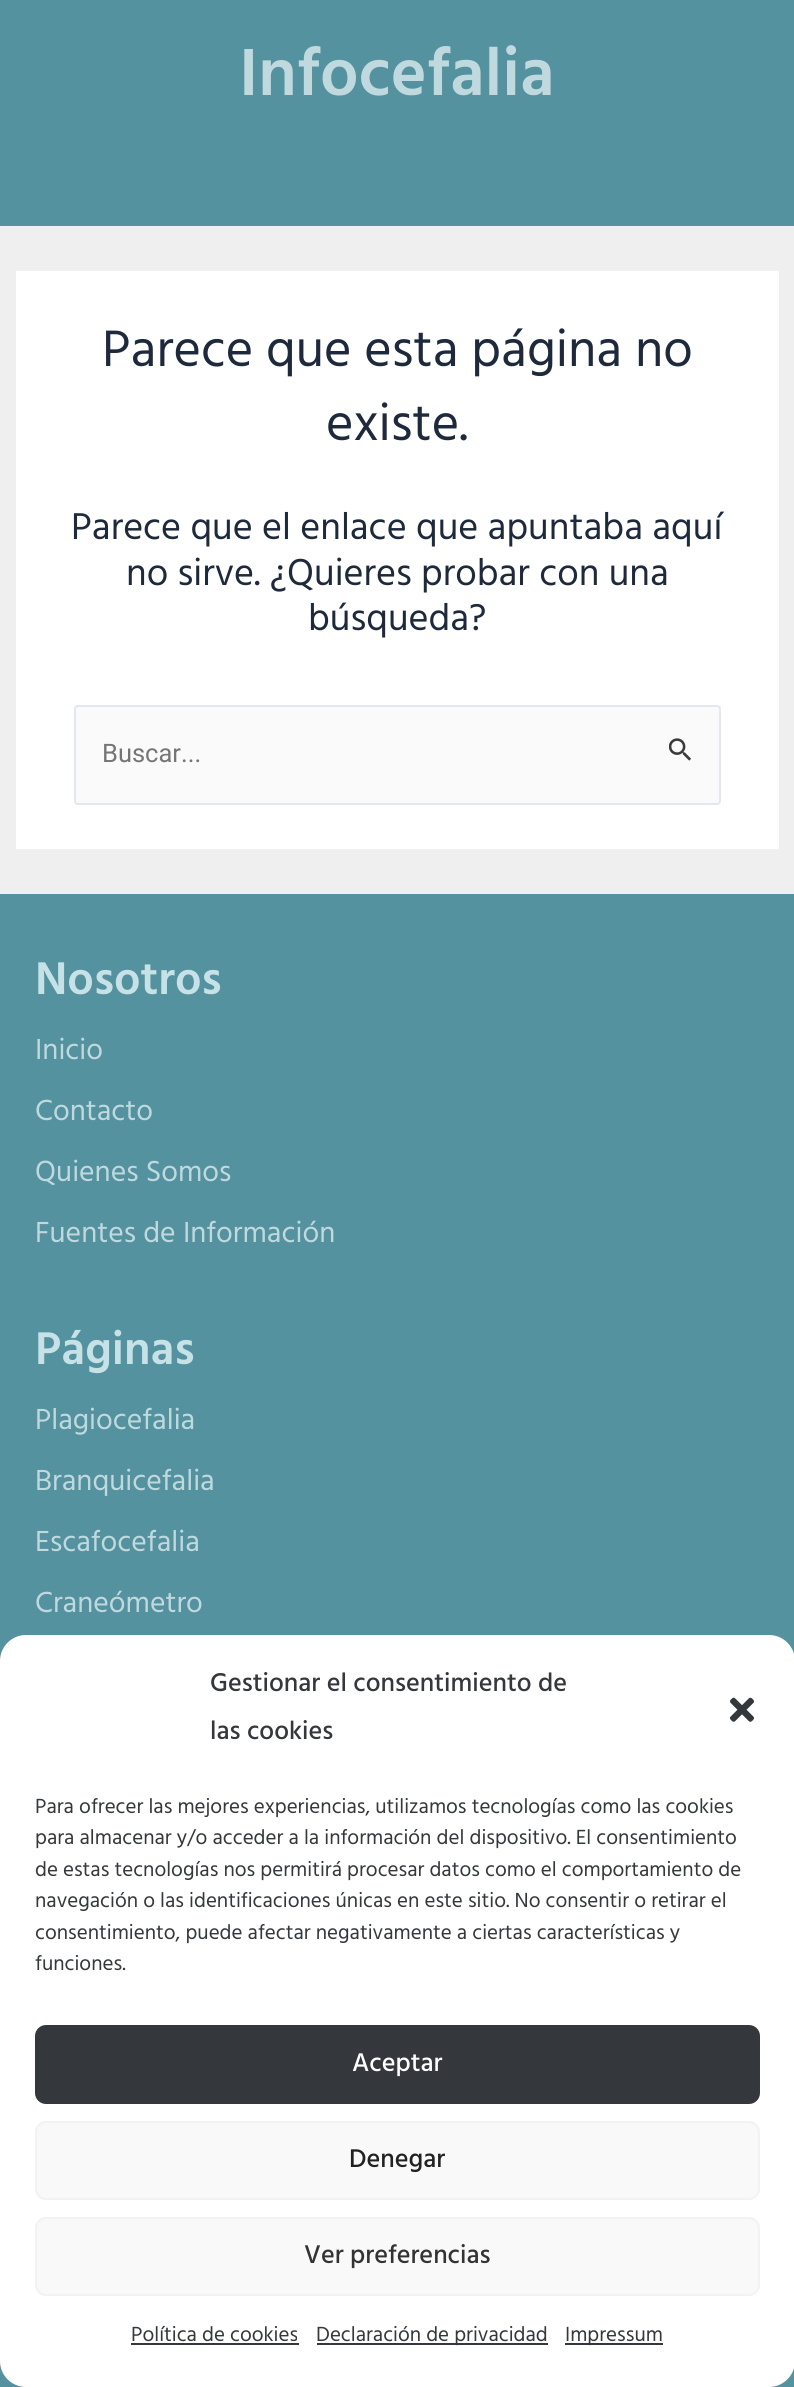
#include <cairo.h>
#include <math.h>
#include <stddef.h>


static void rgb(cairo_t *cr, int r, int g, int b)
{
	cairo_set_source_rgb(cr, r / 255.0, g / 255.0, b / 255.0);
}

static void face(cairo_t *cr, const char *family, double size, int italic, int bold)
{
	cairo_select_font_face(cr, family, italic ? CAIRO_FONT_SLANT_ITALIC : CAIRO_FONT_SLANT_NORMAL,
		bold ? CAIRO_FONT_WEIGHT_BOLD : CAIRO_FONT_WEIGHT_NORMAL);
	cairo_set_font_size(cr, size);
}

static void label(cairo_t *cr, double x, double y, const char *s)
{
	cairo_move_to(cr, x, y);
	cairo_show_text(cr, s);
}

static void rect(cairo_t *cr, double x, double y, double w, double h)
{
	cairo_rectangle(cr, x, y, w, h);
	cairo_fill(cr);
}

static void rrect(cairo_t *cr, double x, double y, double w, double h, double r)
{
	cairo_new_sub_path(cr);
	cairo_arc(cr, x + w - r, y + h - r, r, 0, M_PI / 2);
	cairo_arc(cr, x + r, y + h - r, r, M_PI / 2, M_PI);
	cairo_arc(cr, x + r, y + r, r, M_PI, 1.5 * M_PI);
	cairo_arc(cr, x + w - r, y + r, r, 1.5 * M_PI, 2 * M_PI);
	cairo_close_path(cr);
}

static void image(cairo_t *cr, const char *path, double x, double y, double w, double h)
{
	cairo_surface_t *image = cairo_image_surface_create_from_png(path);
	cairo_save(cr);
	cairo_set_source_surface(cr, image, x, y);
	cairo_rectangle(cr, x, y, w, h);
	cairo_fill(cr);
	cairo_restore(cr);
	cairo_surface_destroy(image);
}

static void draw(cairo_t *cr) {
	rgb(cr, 239, 239, 239);
	cairo_paint(cr);
	rgb(cr, 84, 146, 160);
	rect(cr, 0, 0, 794, 226);
	face(cr, "Hind SemiBold", 68.25, 0, 0);
	rgb(cr, 192, 217, 222);
	label(cr, 239, 95, "Infocefalia");
	rgb(cr, 255, 255, 255);
	rect(cr, 16, 271, 763, 578);
	face(cr, "Hind", 52.5, 0, 0);
	rgb(cr, 30, 41, 59);
	label(cr, 102, 366, "Parece que esta página no");
	label(cr, 326, 440, "existe.");
	face(cr, "Hind", 38.25, 0, 0);
	label(cr, 71, 539, "Parece que el enlace que apuntaba aquí");
	label(cr, 126, 585, "no sirve. ¿Quieres probar con una");
	label(cr, 308, 630, "búsqueda?");
	rgb(cr, 250, 250, 250);
	rrect(cr, 75, 706, 645, 98, 3);
	cairo_fill_preserve(cr);
	rgb(cr, 226, 232, 240);
	cairo_stroke(cr);
	face(cr, "Roboto", 25.5, 0, 0);
	rgb(cr, 117, 117, 117);
	label(cr, 102, 762, "Buscar...");
	image(cr, "image0.png", 669, 738, 22, 23);
	rgb(cr, 84, 146, 160);
	rect(cr, 0, 894, 794, 767);
	face(cr, "Hind SemiBold", 47, 0, 0);
	rgb(cr, 199, 226, 231);
	label(cr, 35, 994, "Nosotros");
	face(cr, "Hind", 29.75, 0, 0);
	rgb(cr, 192, 217, 222);
	label(cr, 35, 1059, "Inicio");
	label(cr, 35, 1120, "Contacto");
	label(cr, 35, 1181, "Quienes Somos");
	label(cr, 35, 1242, "Fuentes de Información");
	face(cr, "Hind SemiBold", 47, 0, 0);
	rgb(cr, 199, 226, 231);
	label(cr, 35, 1364, "Páginas");
	face(cr, "Hind", 29.75, 0, 0);
	rgb(cr, 192, 217, 222);
	label(cr, 35, 1429, "Plagiocefalia");
	label(cr, 35, 1490, "Branquicefalia");
	label(cr, 35, 1551, "Escafocefalia");
	label(cr, 35, 1612, "Craneómetro");
	rgb(cr, 84, 146, 160);
	rect(cr, 0, 2361, 794, 26);
	rgb(cr, 255, 255, 255);
	rrect(cr, 0, 1635, 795, 752, 26);
	cairo_fill(cr);
	face(cr, "Hind Medium", 26.25, 0, 0);
	rgb(cr, 52, 56, 60);
	label(cr, 210, 1691, "Gestionar el consentimiento de");
	label(cr, 210, 1739, "las cookies");
	image(cr, "image1.png", 730, 1697, 24, 25);
	face(cr, "Hind", 21, 0, 0);
	label(cr, 35, 1813, "Para ofrecer las mejores experiencias, utilizamos tecnologías como las cookies");
	label(cr, 35, 1844, "para almacenar y/o acceder a la información del dispositivo. El consentimiento");
	label(cr, 35, 1876, "de estas tecnologías nos permitirá procesar datos como el comportamiento de");
	label(cr, 35, 1907, "navegación o las identificaciones únicas en este sitio. No consentir o retirar el");
	label(cr, 35, 1939, "consentimiento, puede afectar negativamente a ciertas características y");
	label(cr, 35, 1970, "funciones.");
	rrect(cr, 36, 2026, 723, 77, 10);
	cairo_fill_preserve(cr);
	cairo_stroke(cr);
	face(cr, "Hind Medium", 26.25, 0, 0);
	rgb(cr, 255, 255, 255);
	label(cr, 352, 2071, "Aceptar");
	rgb(cr, 249, 249, 249);
	rrect(cr, 36, 2122, 723, 77, 10);
	cairo_fill_preserve(cr);
	rgb(cr, 242, 242, 242);
	cairo_stroke(cr);
	rgb(cr, 34, 34, 34);
	label(cr, 349, 2167, "Denegar");
	rgb(cr, 249, 249, 249);
	rrect(cr, 36, 2218, 723, 77, 10);
	cairo_fill_preserve(cr);
	rgb(cr, 242, 242, 242);
	cairo_stroke(cr);
	rgb(cr, 51, 51, 51);
	label(cr, 304, 2263, "Ver preferencias");
	face(cr, "Hind", 21, 0, 0);
	rgb(cr, 52, 56, 60);
	label(cr, 131, 2341, "Política de cookies");
	rect(cr, 131, 2343, 168, 2);
	rect(cr, 317, 2343, 231, 2);
	label(cr, 316, 2341, "Declaración de privacidad");
	rect(cr, 565, 2343, 98, 2);
	label(cr, 565, 2341, "Impressum");
}

int main(void) {
	cairo_surface_t *surface = cairo_image_surface_create(CAIRO_FORMAT_RGB24, 794, 2387);
	cairo_t *cr = cairo_create(surface);
	cairo_font_options_t *options = cairo_font_options_create();
	cairo_font_options_set_hint_metrics(options, CAIRO_HINT_METRICS_OFF);
	cairo_font_options_set_hint_style(options, CAIRO_HINT_STYLE_NONE);
	cairo_set_font_options(cr, options);
	cairo_set_miter_limit(cr, 4);
	draw(cr);
	cairo_surface_write_to_png(surface, "render.png");
	cairo_font_options_destroy(options);
	cairo_destroy(cr);
	cairo_surface_destroy(surface);
	return 0;
}
